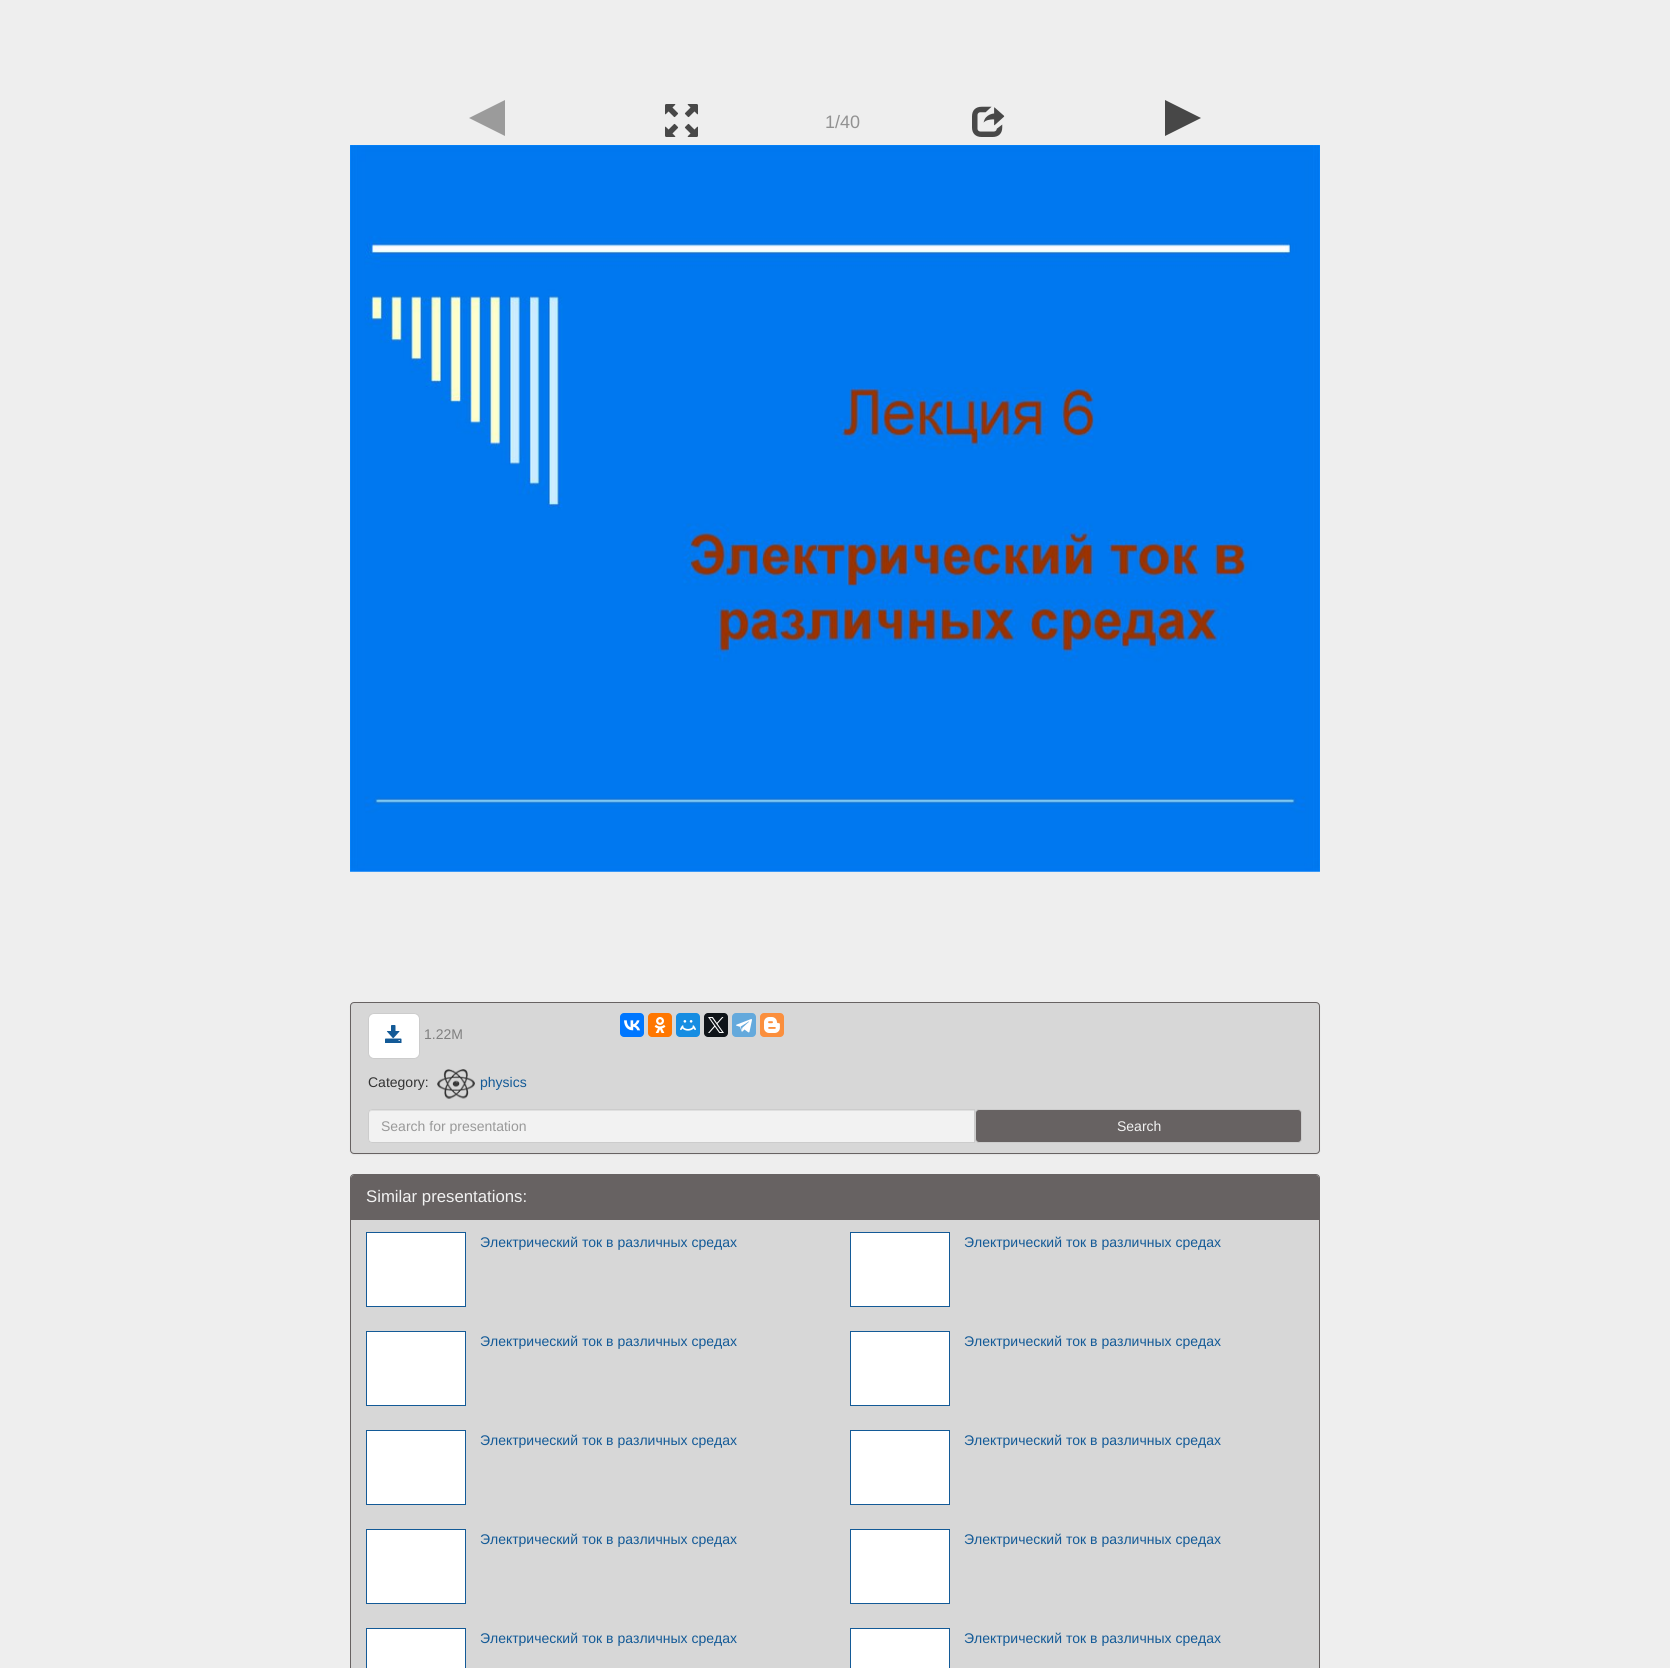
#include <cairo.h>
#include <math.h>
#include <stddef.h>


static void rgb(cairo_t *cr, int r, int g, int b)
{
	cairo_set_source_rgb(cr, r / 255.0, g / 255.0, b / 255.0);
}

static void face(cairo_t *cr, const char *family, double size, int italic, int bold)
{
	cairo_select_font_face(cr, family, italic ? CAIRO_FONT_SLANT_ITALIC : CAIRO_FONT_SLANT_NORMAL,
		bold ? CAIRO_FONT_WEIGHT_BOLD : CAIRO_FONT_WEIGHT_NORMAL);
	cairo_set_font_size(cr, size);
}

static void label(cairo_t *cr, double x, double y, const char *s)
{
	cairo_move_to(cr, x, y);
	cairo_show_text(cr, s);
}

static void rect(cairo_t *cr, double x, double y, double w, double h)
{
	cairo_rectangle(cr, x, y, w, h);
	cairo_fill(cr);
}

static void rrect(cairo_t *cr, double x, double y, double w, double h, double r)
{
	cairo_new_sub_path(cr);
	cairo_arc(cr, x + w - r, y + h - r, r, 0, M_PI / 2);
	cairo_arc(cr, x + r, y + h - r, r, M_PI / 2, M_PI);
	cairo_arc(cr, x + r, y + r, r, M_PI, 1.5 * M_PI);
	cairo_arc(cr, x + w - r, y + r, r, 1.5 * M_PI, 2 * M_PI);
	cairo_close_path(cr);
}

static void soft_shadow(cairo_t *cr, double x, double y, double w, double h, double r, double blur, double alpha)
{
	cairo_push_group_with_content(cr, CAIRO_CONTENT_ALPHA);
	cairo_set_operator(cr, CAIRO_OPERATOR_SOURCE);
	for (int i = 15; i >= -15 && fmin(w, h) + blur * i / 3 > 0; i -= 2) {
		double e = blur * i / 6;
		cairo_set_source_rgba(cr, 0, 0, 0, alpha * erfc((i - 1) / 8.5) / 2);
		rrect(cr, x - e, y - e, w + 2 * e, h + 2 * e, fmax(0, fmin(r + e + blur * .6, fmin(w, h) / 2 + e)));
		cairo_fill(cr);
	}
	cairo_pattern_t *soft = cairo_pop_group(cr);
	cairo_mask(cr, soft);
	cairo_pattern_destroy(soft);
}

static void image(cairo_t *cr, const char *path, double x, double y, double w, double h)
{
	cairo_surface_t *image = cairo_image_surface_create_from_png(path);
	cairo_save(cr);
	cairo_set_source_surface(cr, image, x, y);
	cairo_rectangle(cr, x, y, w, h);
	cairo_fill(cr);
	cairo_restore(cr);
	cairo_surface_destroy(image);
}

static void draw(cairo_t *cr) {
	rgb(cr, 238, 238, 238);
	cairo_paint(cr);
	rgb(cr, 155, 155, 155);
	cairo_new_path(cr);
	cairo_move_to(cr, 505, 100);
	cairo_line_to(cr, 505, 136);
	cairo_line_to(cr, 469, 118);
	cairo_close_path(cr);
	cairo_fill(cr);
	image(cr, "image0.png", 665, 104, 33, 33);
	image(cr, "image1.png", 972, 106, 33, 31);
	rgb(cr, 71, 71, 71);
	cairo_new_path(cr);
	cairo_move_to(cr, 1165, 136);
	cairo_line_to(cr, 1165, 100);
	cairo_line_to(cr, 1201, 118);
	cairo_close_path(cr);
	cairo_fill(cr);
	face(cr, "Liberation Sans", 18, 0, 0);
	rgb(cr, 145, 145, 145);
	label(cr, 825, 128, "1/40");
	image(cr, "image2.png", 350, 145, 970, 727);
	rgb(cr, 0, 0, 0);
	soft_shadow(cr, 350, 1003, 970, 152, 4, 0.5, 0.05);
	rgb(cr, 215, 215, 215);
	rrect(cr, 350.5, 1002.5, 969, 151, 3.5);
	cairo_fill_preserve(cr);
	rgb(cr, 103, 98, 98);
	cairo_set_line_width(cr, 1);
	cairo_stroke(cr);
	rgb(cr, 255, 255, 255);
	rrect(cr, 368.5, 1013.5, 51, 45, 5.5);
	cairo_fill_preserve(cr);
	rgb(cr, 204, 204, 204);
	cairo_stroke(cr);
	image(cr, "image3.png", 385, 1025, 17, 18);
	face(cr, "Liberation Sans", 14, 0, 0);
	rgb(cr, 128, 128, 128);
	label(cr, 424, 1039, "1.22M");
	rgb(cr, 0, 119, 255);
	rrect(cr, 620, 1013, 24, 24, 4);
	cairo_fill(cr);
	image(cr, "image4.png", 624, 1020, 16, 11);
	rgb(cr, 255, 119, 0);
	rrect(cr, 648, 1013, 24, 24, 4);
	cairo_fill(cr);
	image(cr, "image5.png", 654, 1017, 12, 16);
	rgb(cr, 22, 141, 226);
	rrect(cr, 676, 1013, 24, 24, 4);
	cairo_fill(cr);
	image(cr, "image6.png", 680, 1020, 16, 11);
	rgb(cr, 15, 20, 25);
	rrect(cr, 704, 1013, 24, 24, 4);
	cairo_fill(cr);
	image(cr, "image7.png", 708, 1017, 16, 16);
	rgb(cr, 100, 169, 220);
	rrect(cr, 732, 1013, 24, 24, 4);
	cairo_fill(cr);
	image(cr, "image8.png", 736, 1019, 16, 14);
	rgb(cr, 251, 143, 61);
	rrect(cr, 760, 1013, 24, 24, 4);
	cairo_fill(cr);
	image(cr, "image9.png", 764, 1017, 16, 16);
	rgb(cr, 51, 51, 51);
	label(cr, 368, 1087, "Category:");
	image(cr, "image10.png", 437, 1069, 38, 30);
	rgb(cr, 19, 90, 151);
	label(cr, 480, 1087, "physics");
	rgb(cr, 242, 242, 242);
	cairo_new_path(cr);
	cairo_move_to(cr, 372, 1109);
	cairo_line_to(cr, 975, 1109);
	cairo_line_to(cr, 975, 1143);
	cairo_line_to(cr, 372, 1143);
	cairo_curve_to(cr, 370, 1143, 368, 1141, 368, 1139);
	cairo_line_to(cr, 368, 1113);
	cairo_curve_to(cr, 368, 1111, 370, 1109, 372, 1109);
	cairo_close_path(cr);
	cairo_fill(cr);
	rgb(cr, 224, 224, 224);
	cairo_new_path(cr);
	cairo_move_to(cr, 372, 1111);
	cairo_line_to(cr, 974, 1111);
	cairo_line_to(cr, 974, 1110);
	cairo_line_to(cr, 372, 1110);
	cairo_curve_to(cr, 370, 1110, 369, 1111, 369, 1113);
	cairo_line_to(cr, 369, 1114);
	cairo_curve_to(cr, 369, 1112, 370, 1111, 372, 1111);
	cairo_close_path(cr);
	cairo_fill(cr);
	cairo_new_path(cr);
	cairo_move_to(cr, 372, 1109.5);
	cairo_line_to(cr, 974.5, 1109.5);
	cairo_line_to(cr, 974.5, 1142.5);
	cairo_line_to(cr, 372, 1142.5);
	cairo_curve_to(cr, 370, 1142.5, 368.5, 1141, 368.5, 1139);
	cairo_line_to(cr, 368.5, 1113);
	cairo_curve_to(cr, 368.5, 1111, 370, 1109.5, 372, 1109.5);
	cairo_close_path(cr);
	rgb(cr, 204, 204, 204);
	cairo_stroke(cr);
	rgb(cr, 153, 153, 153);
	label(cr, 381, 1131, "Search for presentation");
	rgb(cr, 103, 98, 98);
	rrect(cr, 975.5, 1109.5, 326, 33, 3.5);
	cairo_fill_preserve(cr);
	rgb(cr, 204, 204, 204);
	cairo_stroke(cr);
	rgb(cr, 242, 242, 242);
	label(cr, 1117, 1131, "Search");
	rgb(cr, 215, 215, 215);
	rrect(cr, 350.5, 1174.5, 969, 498, 3.5);
	cairo_fill_preserve(cr);
	rgb(cr, 103, 98, 98);
	cairo_stroke(cr);
	cairo_new_path(cr);
	cairo_move_to(cr, 354, 1175);
	cairo_line_to(cr, 1316, 1175);
	cairo_curve_to(cr, 1317.5, 1175, 1319, 1176.5, 1319, 1178);
	cairo_line_to(cr, 1319, 1220);
	cairo_line_to(cr, 351, 1220);
	cairo_line_to(cr, 351, 1178);
	cairo_curve_to(cr, 351, 1176.5, 352.5, 1175, 354, 1175);
	cairo_close_path(cr);
	cairo_fill(cr);
	face(cr, "Liberation Sans", 16.75, 0, 0);
	rgb(cr, 242, 242, 242);
	label(cr, 366, 1202, "Similar presentations:");
	cairo_rectangle(cr, 366.5, 1232.5, 99, 74);
	rgb(cr, 19, 90, 151);
	cairo_stroke(cr);
	rgb(cr, 255, 255, 255);
	rect(cr, 367, 1233, 98, 73);
	face(cr, "Liberation Sans", 14, 0, 0);
	rgb(cr, 19, 90, 151);
	label(cr, 480, 1247, "Электрический ток в различных средах");
	cairo_rectangle(cr, 850.5, 1232.5, 99, 74);
	cairo_stroke(cr);
	rgb(cr, 255, 255, 255);
	rect(cr, 851, 1233, 98, 73);
	rgb(cr, 19, 90, 151);
	label(cr, 964, 1247, "Электрический ток в различных средах");
	cairo_rectangle(cr, 366.5, 1331.5, 99, 74);
	cairo_stroke(cr);
	rgb(cr, 255, 255, 255);
	rect(cr, 367, 1332, 98, 73);
	rgb(cr, 19, 90, 151);
	label(cr, 480, 1346, "Электрический ток в различных средах");
	cairo_rectangle(cr, 850.5, 1331.5, 99, 74);
	cairo_stroke(cr);
	rgb(cr, 255, 255, 255);
	rect(cr, 851, 1332, 98, 73);
	rgb(cr, 19, 90, 151);
	label(cr, 964, 1346, "Электрический ток в различных средах");
	cairo_rectangle(cr, 366.5, 1430.5, 99, 74);
	cairo_stroke(cr);
	rgb(cr, 255, 255, 255);
	rect(cr, 367, 1431, 98, 73);
	rgb(cr, 19, 90, 151);
	label(cr, 480, 1445, "Электрический ток в различных средах");
	cairo_rectangle(cr, 850.5, 1430.5, 99, 74);
	cairo_stroke(cr);
	rgb(cr, 255, 255, 255);
	rect(cr, 851, 1431, 98, 73);
	rgb(cr, 19, 90, 151);
	label(cr, 964, 1445, "Электрический ток в различных средах");
	cairo_rectangle(cr, 366.5, 1529.5, 99, 74);
	cairo_stroke(cr);
	rgb(cr, 255, 255, 255);
	rect(cr, 367, 1530, 98, 73);
	rgb(cr, 19, 90, 151);
	label(cr, 480, 1544, "Электрический ток в различных средах");
	cairo_rectangle(cr, 850.5, 1529.5, 99, 74);
	cairo_stroke(cr);
	rgb(cr, 255, 255, 255);
	rect(cr, 851, 1530, 98, 73);
	rgb(cr, 19, 90, 151);
	label(cr, 964, 1544, "Электрический ток в различных средах");
	cairo_rectangle(cr, 366.5, 1628.5, 99, 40);
	cairo_stroke(cr);
	rgb(cr, 255, 255, 255);
	rect(cr, 367, 1629, 98, 39);
	rgb(cr, 19, 90, 151);
	label(cr, 480, 1643, "Электрический ток в различных средах");
	cairo_rectangle(cr, 850.5, 1628.5, 99, 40);
	cairo_stroke(cr);
	rgb(cr, 255, 255, 255);
	rect(cr, 851, 1629, 98, 39);
	rgb(cr, 19, 90, 151);
	label(cr, 964, 1643, "Электрический ток в различных средах");
}

int main(void) {
	cairo_surface_t *surface = cairo_image_surface_create(CAIRO_FORMAT_RGB24, 1670, 1668);
	cairo_t *cr = cairo_create(surface);
	cairo_font_options_t *options = cairo_font_options_create();
	cairo_font_options_set_hint_metrics(options, CAIRO_HINT_METRICS_OFF);
	cairo_font_options_set_hint_style(options, CAIRO_HINT_STYLE_NONE);
	cairo_set_font_options(cr, options);
	cairo_set_miter_limit(cr, 4);
	draw(cr);
	cairo_surface_write_to_png(surface, "render.png");
	cairo_font_options_destroy(options);
	cairo_destroy(cr);
	cairo_surface_destroy(surface);
	return 0;
}
